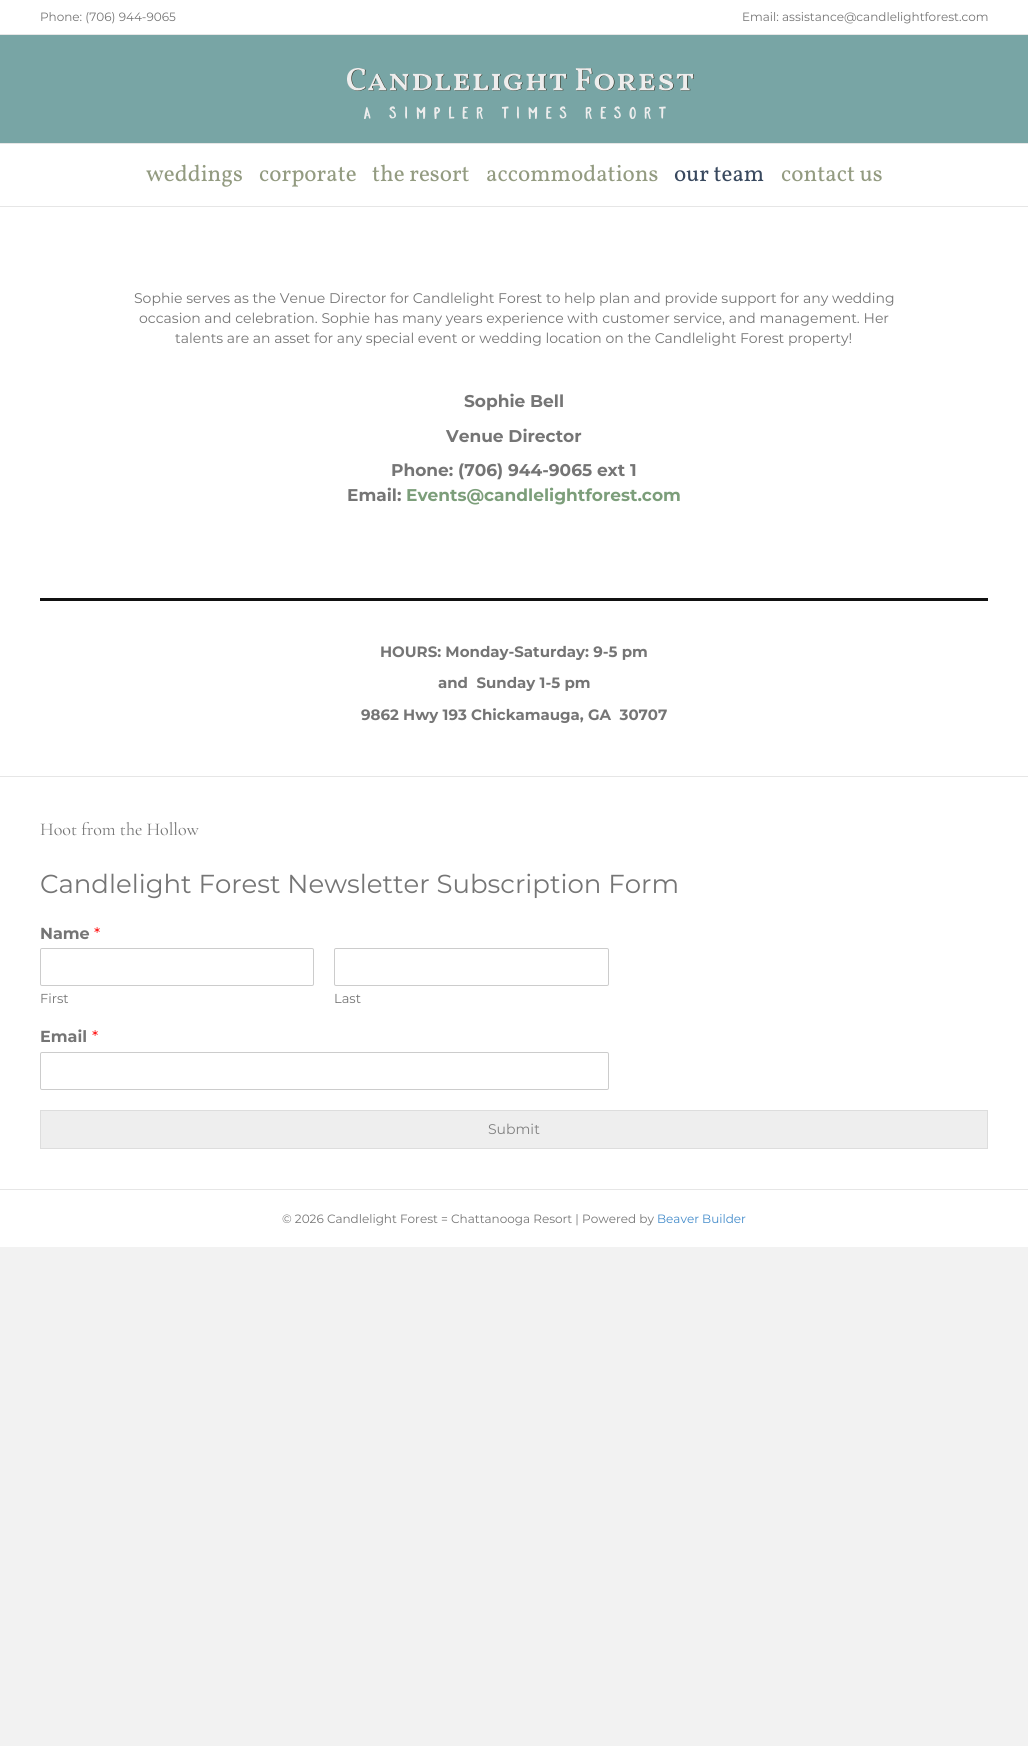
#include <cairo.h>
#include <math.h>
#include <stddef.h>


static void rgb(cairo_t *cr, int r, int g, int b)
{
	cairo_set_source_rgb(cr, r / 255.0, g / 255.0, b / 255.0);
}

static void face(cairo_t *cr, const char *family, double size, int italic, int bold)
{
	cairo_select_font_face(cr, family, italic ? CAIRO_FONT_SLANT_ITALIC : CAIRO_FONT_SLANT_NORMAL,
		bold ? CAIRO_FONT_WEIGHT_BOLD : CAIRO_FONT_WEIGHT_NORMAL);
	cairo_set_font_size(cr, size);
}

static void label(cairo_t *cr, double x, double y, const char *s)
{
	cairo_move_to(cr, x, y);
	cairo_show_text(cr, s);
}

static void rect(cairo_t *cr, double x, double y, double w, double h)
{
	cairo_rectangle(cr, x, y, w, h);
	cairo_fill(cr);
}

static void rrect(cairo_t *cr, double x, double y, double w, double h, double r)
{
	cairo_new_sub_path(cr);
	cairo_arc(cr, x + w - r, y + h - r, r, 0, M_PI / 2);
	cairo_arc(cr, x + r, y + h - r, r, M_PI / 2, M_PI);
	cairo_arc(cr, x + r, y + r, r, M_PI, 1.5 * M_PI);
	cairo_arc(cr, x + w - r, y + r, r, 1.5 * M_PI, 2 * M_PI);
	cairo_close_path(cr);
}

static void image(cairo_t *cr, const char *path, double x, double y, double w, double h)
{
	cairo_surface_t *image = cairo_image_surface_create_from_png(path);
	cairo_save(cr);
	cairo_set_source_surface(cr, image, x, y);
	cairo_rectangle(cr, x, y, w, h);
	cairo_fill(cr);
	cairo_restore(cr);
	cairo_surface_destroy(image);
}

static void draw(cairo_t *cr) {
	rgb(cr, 242, 242, 242);
	cairo_paint(cr);
	rgb(cr, 255, 255, 255);
	rect(cr, 0, 0, 1028, 34);
	rgb(cr, 230, 230, 230);
	rect(cr, 0, 34, 1028, 1);
	face(cr, "Montserrat", 12, 0, 0);
	rgb(cr, 117, 117, 117);
	label(cr, 40, 21, "Phone: (706) 944-9065");
	label(cr, 742, 21, "Email: assistance@candlelightforest.com");
	rgb(cr, 120, 165, 165);
	rect(cr, 0, 35, 1028, 108);
	image(cr, "image0.png", 347, 68, 347, 51);
	rgb(cr, 255, 255, 255);
	rect(cr, 0, 144, 1028, 62);
	rgb(cr, 230, 230, 230);
	rect(cr, 0, 143, 1028, 1);
	rect(cr, 0, 206, 1028, 1);
	face(cr, "Vollkorn", 23, 0, 0);
	rgb(cr, 147, 155, 129);
	label(cr, 146, 181, "weddings");
	label(cr, 259, 181, "corporate");
	label(cr, 372, 181, "the resort");
	label(cr, 486, 181, "accommodations");
	rgb(cr, 56, 72, 94);
	label(cr, 674, 181, "our team");
	rgb(cr, 147, 155, 129);
	label(cr, 781, 181, "contact us");
	rgb(cr, 255, 255, 255);
	rect(cr, 0, 207, 1028, 569);
	face(cr, "Montserrat", 14, 0, 0);
	rgb(cr, 117, 117, 117);
	label(cr, 134, 303, "Sophie serves as the Venue Director for Candlelight Forest to help plan and provide support for any wedding");
	label(cr, 139, 323, "occasion and celebration. Sophie has many years experience with customer service, and management. Her");
	label(cr, 175, 343, "talents are an asset for any special event or wedding location on the Candlelight Forest property!");
	face(cr, "Montserrat", 17, 0, 1);
	label(cr, 464, 407, "Sophie Bell");
	label(cr, 446, 442, "Venue Director");
	label(cr, 391, 476, "Phone: (706) 944-9065 ext 1");
	label(cr, 347, 501, "Email:");
	rgb(cr, 124, 158, 122);
	label(cr, 406, 501, "Events@candlelightforest.com");
	rgb(cr, 17, 17, 17);
	rect(cr, 40, 598, 948, 3);
	face(cr, "Montserrat", 15, 0, 1);
	rgb(cr, 117, 117, 117);
	label(cr, 380, 657, "HOURS: Monday-Saturday: 9-5 pm");
	label(cr, 438, 688, "and  Sunday 1-5 pm");
	label(cr, 361, 720, "9862 Hwy 193 Chickamauga, GA  30707");
	rgb(cr, 255, 255, 255);
	rect(cr, 0, 777, 1028, 412);
	rgb(cr, 230, 230, 230);
	rect(cr, 0, 776, 1028, 1);
	face(cr, "Cormorant Garamond Light", 18, 0, 0);
	rgb(cr, 117, 117, 117);
	label(cr, 40, 835, "Hoot from the Hollow");
	face(cr, "Montserrat", 26, 0, 0);
	label(cr, 40, 893, "Candlelight Forest Newsletter Subscription Form");
	face(cr, "Montserrat", 16, 0, 1);
	label(cr, 40, 939, "Name");
	face(cr, "Montserrat", 16, 0, 0);
	rgb(cr, 255, 0, 0);
	label(cr, 94, 939, "*");
	rrect(cr, 40.5, 948.5, 273, 37, 1.5);
	rgb(cr, 204, 204, 204);
	cairo_set_line_width(cr, 1);
	cairo_stroke(cr);
	face(cr, "Montserrat", 13, 0, 0);
	rgb(cr, 117, 117, 117);
	label(cr, 40, 1003, "First");
	rrect(cr, 334.5, 948.5, 274, 37, 1.5);
	rgb(cr, 204, 204, 204);
	cairo_stroke(cr);
	rgb(cr, 117, 117, 117);
	label(cr, 334, 1003, "Last");
	face(cr, "Montserrat", 16, 0, 1);
	label(cr, 40, 1042, "Email");
	face(cr, "Montserrat", 16, 0, 0);
	rgb(cr, 255, 0, 0);
	label(cr, 92, 1042, "*");
	rrect(cr, 40.5, 1052.5, 568, 37, 1.5);
	rgb(cr, 204, 204, 204);
	cairo_stroke(cr);
	rgb(cr, 238, 238, 238);
	cairo_rectangle(cr, 40.5, 1110.5, 947, 38);
	cairo_fill_preserve(cr);
	rgb(cr, 221, 221, 221);
	cairo_stroke(cr);
	face(cr, "Montserrat", 14, 0, 0);
	rgb(cr, 128, 128, 128);
	label(cr, 488, 1134, "Submit");
	rgb(cr, 255, 255, 255);
	rect(cr, 0, 1190, 1028, 57);
	rgb(cr, 230, 230, 230);
	rect(cr, 0, 1189, 1028, 1);
	face(cr, "Montserrat", 12, 0, 0);
	rgb(cr, 117, 117, 117);
	label(cr, 282, 1223, "© 2026 Candlelight Forest = Chattanooga Resort | Powered by");
	rgb(cr, 66, 139, 202);
	label(cr, 657, 1223, "Beaver Builder");
}

int main(void) {
	cairo_surface_t *surface = cairo_image_surface_create(CAIRO_FORMAT_RGB24, 1028, 1746);
	cairo_t *cr = cairo_create(surface);
	cairo_font_options_t *options = cairo_font_options_create();
	cairo_font_options_set_hint_metrics(options, CAIRO_HINT_METRICS_OFF);
	cairo_font_options_set_hint_style(options, CAIRO_HINT_STYLE_NONE);
	cairo_set_font_options(cr, options);
	cairo_set_miter_limit(cr, 4);
	draw(cr);
	cairo_surface_write_to_png(surface, "render.png");
	cairo_font_options_destroy(options);
	cairo_destroy(cr);
	cairo_surface_destroy(surface);
	return 0;
}
